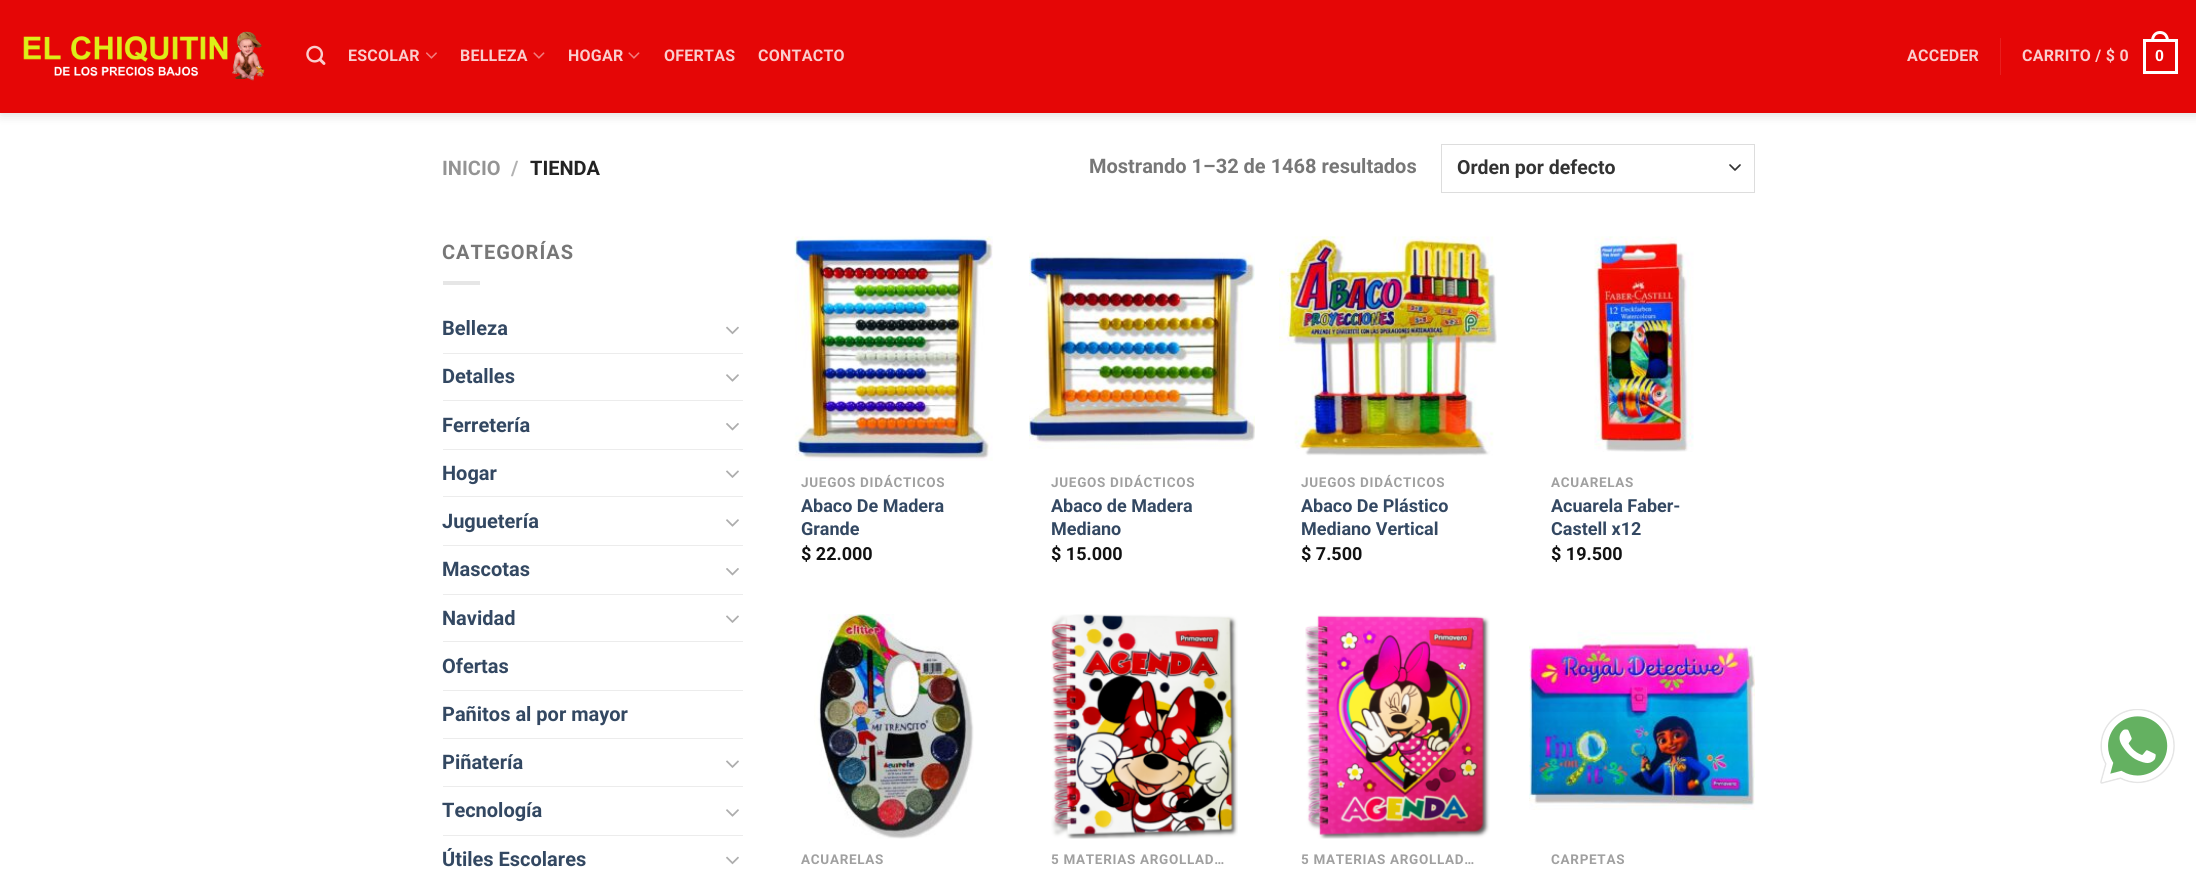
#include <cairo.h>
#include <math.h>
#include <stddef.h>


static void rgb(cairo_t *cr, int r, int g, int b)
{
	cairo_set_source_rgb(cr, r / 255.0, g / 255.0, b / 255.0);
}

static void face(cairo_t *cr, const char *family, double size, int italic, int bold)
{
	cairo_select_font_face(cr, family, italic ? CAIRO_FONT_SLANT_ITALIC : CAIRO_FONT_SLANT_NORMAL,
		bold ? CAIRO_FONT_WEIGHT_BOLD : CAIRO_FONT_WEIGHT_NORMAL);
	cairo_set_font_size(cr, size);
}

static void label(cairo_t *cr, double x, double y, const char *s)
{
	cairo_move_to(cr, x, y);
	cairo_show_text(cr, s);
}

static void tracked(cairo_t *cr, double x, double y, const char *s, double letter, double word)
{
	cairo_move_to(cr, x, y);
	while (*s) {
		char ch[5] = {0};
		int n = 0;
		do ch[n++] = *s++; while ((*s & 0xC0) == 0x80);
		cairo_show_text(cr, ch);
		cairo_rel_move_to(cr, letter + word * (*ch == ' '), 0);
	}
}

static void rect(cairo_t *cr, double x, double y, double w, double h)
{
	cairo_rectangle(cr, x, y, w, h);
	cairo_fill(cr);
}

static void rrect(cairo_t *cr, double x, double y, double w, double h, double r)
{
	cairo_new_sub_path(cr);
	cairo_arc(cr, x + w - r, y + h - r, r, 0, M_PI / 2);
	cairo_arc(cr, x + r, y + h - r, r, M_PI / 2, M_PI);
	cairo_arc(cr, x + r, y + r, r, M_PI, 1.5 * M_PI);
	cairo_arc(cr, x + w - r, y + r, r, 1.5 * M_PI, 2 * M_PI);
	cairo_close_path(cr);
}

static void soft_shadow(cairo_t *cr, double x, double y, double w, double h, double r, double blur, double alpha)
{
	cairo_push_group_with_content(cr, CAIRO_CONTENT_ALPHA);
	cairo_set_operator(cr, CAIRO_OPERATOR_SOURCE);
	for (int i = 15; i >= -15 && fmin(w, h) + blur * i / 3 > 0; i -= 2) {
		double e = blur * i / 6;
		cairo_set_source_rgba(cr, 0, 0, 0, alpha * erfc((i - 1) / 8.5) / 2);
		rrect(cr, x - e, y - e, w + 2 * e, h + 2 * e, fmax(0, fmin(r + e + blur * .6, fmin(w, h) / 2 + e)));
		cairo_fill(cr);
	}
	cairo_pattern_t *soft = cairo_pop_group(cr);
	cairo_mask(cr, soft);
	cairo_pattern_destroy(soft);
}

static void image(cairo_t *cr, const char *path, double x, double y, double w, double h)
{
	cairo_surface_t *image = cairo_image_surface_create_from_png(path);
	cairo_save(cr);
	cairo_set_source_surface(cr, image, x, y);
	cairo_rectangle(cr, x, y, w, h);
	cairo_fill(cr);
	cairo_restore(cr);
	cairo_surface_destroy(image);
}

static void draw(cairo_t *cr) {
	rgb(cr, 255, 255, 255);
	cairo_paint(cr);
	rgb(cr, 0, 0, 0);
	soft_shadow(cr, 1, 1, 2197, 113, 0, 6, 0.15);
	rgb(cr, 229, 6, 6);
	rect(cr, 0, 0, 2196, 113);
	image(cr, "image0.png", 23, 31, 242, 50);
	image(cr, "image1.png", 306, 45, 20, 20);
	face(cr, "Roboto", 16, 0, 1);
	rgb(cr, 250, 205, 205);
	tracked(cr, 348, 61, "ESCOLAR", 0.25, 0);
	image(cr, "image2.png", 426, 52, 11, 7);
	tracked(cr, 460, 61, "BELLEZA", 0.25, 0);
	image(cr, "image3.png", 533, 52, 12, 7);
	tracked(cr, 568, 61, "HOGAR", 0.25, 0);
	image(cr, "image3.png", 628, 52, 12, 7);
	tracked(cr, 664, 61, "OFERTAS", 0.25, 0);
	tracked(cr, 758, 61, "CONTACTO", 0.25, 0);
	tracked(cr, 1907, 61, "ACCEDER", 0.25, 0);
	rgb(cr, 232, 31, 31);
	rect(cr, 2000, 38, 1, 37);
	rgb(cr, 250, 205, 205);
	tracked(cr, 2022, 61, "CARRITO / $ 0", 0.25, 0);
	cairo_rectangle(cr, 2144.5, 40.5, 32, 32);
	rgb(cr, 255, 255, 255);
	cairo_set_line_width(cr, 3);
	cairo_stroke(cr);
	cairo_set_fill_rule(cr, CAIRO_FILL_RULE_EVEN_ODD);
	cairo_new_path(cr);
	cairo_move_to(cr, 2160, 31);
	cairo_curve_to(cr, 2166, 31, 2169, 36, 2169, 41);
	cairo_line_to(cr, 2151, 41);
	cairo_curve_to(cr, 2151, 36, 2154, 31, 2160, 31);
	cairo_close_path(cr);
	cairo_move_to(cr, 2160, 34);
	cairo_curve_to(cr, 2164.5, 34, 2166, 37.5, 2166, 41);
	cairo_line_to(cr, 2154, 41);
	cairo_curve_to(cr, 2154, 37.5, 2155.5, 34, 2160, 34);
	cairo_close_path(cr);
	cairo_fill(cr);
	face(cr, "Liberation Sans", 16, 0, 1);
	tracked(cr, 2155, 61, "0", 0.25, 0);
	face(cr, "Roboto", 20, 0, 1);
	rgb(cr, 148, 148, 148);
	label(cr, 442, 175, "INICIO");
	rgb(cr, 178, 178, 178);
	label(cr, 511, 175, "/");
	rgb(cr, 34, 34, 34);
	label(cr, 530, 175, "TIENDA");
	rgb(cr, 119, 119, 119);
	label(cr, 1089, 173, "Mostrando 1–32 de 1468 resultados");
	cairo_new_path(cr);
	cairo_move_to(cr, 1730, 165);
	cairo_line_to(cr, 1735, 170);
	cairo_line_to(cr, 1740, 165);
	rgb(cr, 51, 51, 51);
	cairo_set_line_width(cr, 1.7);
	cairo_set_line_cap(cr, CAIRO_LINE_CAP_ROUND);
	cairo_set_line_join(cr, CAIRO_LINE_JOIN_ROUND);
	cairo_stroke(cr);
	cairo_rectangle(cr, 1441.5, 144.5, 313, 48);
	rgb(cr, 221, 221, 221);
	cairo_set_line_width(cr, 1);
	cairo_set_line_cap(cr, CAIRO_LINE_CAP_BUTT);
	cairo_set_line_join(cr, CAIRO_LINE_JOIN_MITER);
	cairo_stroke(cr);
	face(cr, "Roboto", 19.5, 0, 1);
	rgb(cr, 51, 51, 51);
	label(cr, 1457, 174, "Orden por defecto");
	face(cr, "Roboto", 20, 0, 1);
	rgb(cr, 119, 119, 119);
	tracked(cr, 442, 259, "CATEGORÍAS", 1, 0);
	rgb(cr, 230, 230, 230);
	rect(cr, 443, 281, 37, 4);
	rgb(cr, 51, 72, 98);
	label(cr, 442, 335, "Belleza");
	image(cr, "image4.png", 726, 326, 13, 9);
	rgb(cr, 236, 236, 236);
	rect(cr, 443, 353, 300, 1);
	rgb(cr, 51, 72, 98);
	label(cr, 442, 383, "Detalles");
	image(cr, "image5.png", 726, 374, 13, 8);
	rgb(cr, 236, 236, 236);
	rect(cr, 443, 400, 300, 1);
	rgb(cr, 51, 72, 98);
	label(cr, 442, 432, "Ferretería");
	image(cr, "image6.png", 726, 423, 13, 8);
	rgb(cr, 236, 236, 236);
	rect(cr, 443, 449, 300, 1);
	rgb(cr, 51, 72, 98);
	label(cr, 442, 480, "Hogar");
	image(cr, "image7.png", 726, 470, 13, 8);
	rgb(cr, 236, 236, 236);
	rect(cr, 443, 496, 300, 1);
	rgb(cr, 51, 72, 98);
	label(cr, 442, 528, "Juguetería");
	image(cr, "image5.png", 726, 519, 13, 8);
	rgb(cr, 236, 236, 236);
	rect(cr, 443, 545, 300, 1);
	rgb(cr, 51, 72, 98);
	label(cr, 442, 576, "Mascotas");
	image(cr, "image6.png", 726, 568, 13, 8);
	rgb(cr, 236, 236, 236);
	rect(cr, 443, 594, 300, 1);
	rgb(cr, 51, 72, 98);
	label(cr, 442, 625, "Navidad");
	image(cr, "image7.png", 726, 615, 13, 8);
	rgb(cr, 236, 236, 236);
	rect(cr, 443, 641, 300, 1);
	rgb(cr, 51, 72, 98);
	label(cr, 442, 673, "Ofertas");
	rgb(cr, 236, 236, 236);
	rect(cr, 443, 690, 300, 1);
	rgb(cr, 51, 72, 98);
	label(cr, 442, 721, "Pañitos al por mayor");
	rgb(cr, 236, 236, 236);
	rect(cr, 443, 738, 300, 1);
	rgb(cr, 51, 72, 98);
	label(cr, 442, 769, "Piñatería");
	image(cr, "image7.png", 726, 760, 13, 8);
	rgb(cr, 236, 236, 236);
	rect(cr, 443, 786, 300, 1);
	rgb(cr, 51, 72, 98);
	label(cr, 442, 817, "Tecnología");
	image(cr, "image5.png", 726, 809, 13, 8);
	rgb(cr, 236, 236, 236);
	rect(cr, 443, 835, 300, 1);
	rgb(cr, 51, 72, 98);
	label(cr, 442, 866, "Útiles Escolares");
	image(cr, "image4.png", 726, 856, 13, 9);
	image(cr, "image8.png", 794, 236, 199, 225);
	face(cr, "Roboto", 13.5, 0, 1);
	rgb(cr, 160, 160, 160);
	tracked(cr, 801, 487, "JUEGOS DIDÁCTICOS", 0.7, 0);
	face(cr, "Roboto", 18, 0, 1);
	rgb(cr, 51, 72, 98);
	label(cr, 801, 512, "Abaco De Madera");
	label(cr, 801, 535, "Grande");
	rgb(cr, 17, 17, 17);
	label(cr, 801, 560, "$ 22.000");
	image(cr, "image9.png", 1029, 252, 226, 197);
	face(cr, "Roboto", 13.5, 0, 1);
	rgb(cr, 160, 160, 160);
	tracked(cr, 1051, 487, "JUEGOS DIDÁCTICOS", 0.7, 0);
	face(cr, "Roboto", 18, 0, 1);
	rgb(cr, 51, 72, 98);
	label(cr, 1051, 512, "Abaco de Madera");
	label(cr, 1051, 535, "Mediano");
	rgb(cr, 17, 17, 17);
	label(cr, 1051, 560, "$ 15.000");
	image(cr, "image10.png", 1279, 236, 218, 220);
	face(cr, "Roboto", 13.5, 0, 1);
	rgb(cr, 160, 160, 160);
	tracked(cr, 1301, 487, "JUEGOS DIDÁCTICOS", 0.7, 0);
	face(cr, "Roboto", 18, 0, 1);
	rgb(cr, 51, 72, 98);
	label(cr, 1301, 512, "Abaco De Plástico");
	label(cr, 1301, 535, "Mediano Vertical");
	rgb(cr, 17, 17, 17);
	label(cr, 1301, 560, "$ 7.500");
	image(cr, "image11.png", 1594, 236, 100, 216);
	face(cr, "Roboto", 13.5, 0, 1);
	rgb(cr, 160, 160, 160);
	tracked(cr, 1551, 487, "ACUARELAS", 0.7, 0);
	face(cr, "Roboto", 18, 0, 1);
	rgb(cr, 51, 72, 98);
	label(cr, 1551, 512, "Acuarela Faber-");
	label(cr, 1551, 535, "Castell x12");
	rgb(cr, 17, 17, 17);
	label(cr, 1551, 560, "$ 19.500");
	image(cr, "image12.png", 814, 614, 160, 225);
	face(cr, "Roboto", 13.5, 0, 1);
	rgb(cr, 160, 160, 160);
	tracked(cr, 801, 864, "ACUARELAS", 0.7, 0);
	image(cr, "image13.png", 1051, 614, 187, 225);
	tracked(cr, 1051, 864, "5 MATERIAS ARGOLLAD…", 0.7, 0);
	image(cr, "image14.png", 1305, 615, 185, 224);
	tracked(cr, 1301, 864, "5 MATERIAS ARGOLLAD…", 0.7, 0);
	image(cr, "image15.png", 1529, 630, 226, 180);
	tracked(cr, 1551, 864, "CARPETAS", 0.7, 0);
	image(cr, "image16.png", 2100, 709, 75, 75);
}

int main(void) {
	cairo_surface_t *surface = cairo_image_surface_create(CAIRO_FORMAT_RGB24, 2196, 871);
	cairo_t *cr = cairo_create(surface);
	cairo_font_options_t *options = cairo_font_options_create();
	cairo_font_options_set_hint_metrics(options, CAIRO_HINT_METRICS_OFF);
	cairo_font_options_set_hint_style(options, CAIRO_HINT_STYLE_NONE);
	cairo_set_font_options(cr, options);
	cairo_set_miter_limit(cr, 4);
	draw(cr);
	cairo_surface_write_to_png(surface, "render.png");
	cairo_font_options_destroy(options);
	cairo_destroy(cr);
	cairo_surface_destroy(surface);
	return 0;
}
